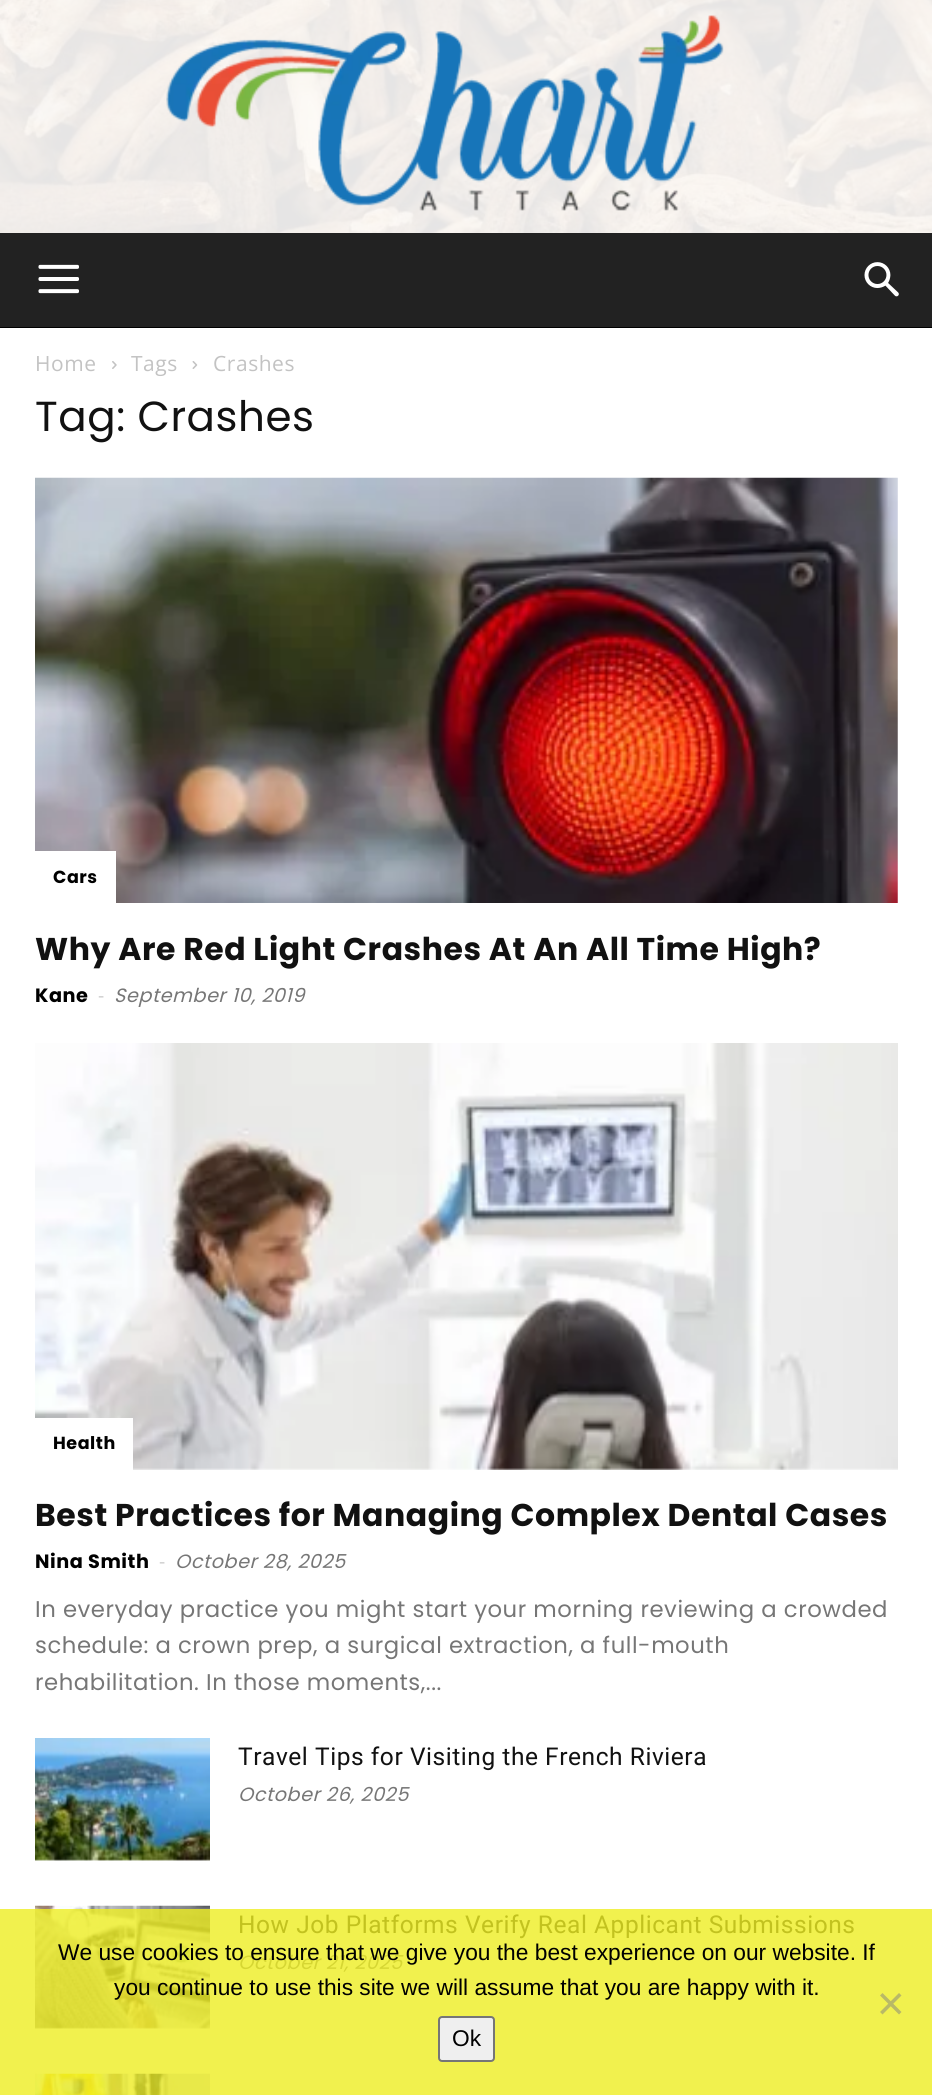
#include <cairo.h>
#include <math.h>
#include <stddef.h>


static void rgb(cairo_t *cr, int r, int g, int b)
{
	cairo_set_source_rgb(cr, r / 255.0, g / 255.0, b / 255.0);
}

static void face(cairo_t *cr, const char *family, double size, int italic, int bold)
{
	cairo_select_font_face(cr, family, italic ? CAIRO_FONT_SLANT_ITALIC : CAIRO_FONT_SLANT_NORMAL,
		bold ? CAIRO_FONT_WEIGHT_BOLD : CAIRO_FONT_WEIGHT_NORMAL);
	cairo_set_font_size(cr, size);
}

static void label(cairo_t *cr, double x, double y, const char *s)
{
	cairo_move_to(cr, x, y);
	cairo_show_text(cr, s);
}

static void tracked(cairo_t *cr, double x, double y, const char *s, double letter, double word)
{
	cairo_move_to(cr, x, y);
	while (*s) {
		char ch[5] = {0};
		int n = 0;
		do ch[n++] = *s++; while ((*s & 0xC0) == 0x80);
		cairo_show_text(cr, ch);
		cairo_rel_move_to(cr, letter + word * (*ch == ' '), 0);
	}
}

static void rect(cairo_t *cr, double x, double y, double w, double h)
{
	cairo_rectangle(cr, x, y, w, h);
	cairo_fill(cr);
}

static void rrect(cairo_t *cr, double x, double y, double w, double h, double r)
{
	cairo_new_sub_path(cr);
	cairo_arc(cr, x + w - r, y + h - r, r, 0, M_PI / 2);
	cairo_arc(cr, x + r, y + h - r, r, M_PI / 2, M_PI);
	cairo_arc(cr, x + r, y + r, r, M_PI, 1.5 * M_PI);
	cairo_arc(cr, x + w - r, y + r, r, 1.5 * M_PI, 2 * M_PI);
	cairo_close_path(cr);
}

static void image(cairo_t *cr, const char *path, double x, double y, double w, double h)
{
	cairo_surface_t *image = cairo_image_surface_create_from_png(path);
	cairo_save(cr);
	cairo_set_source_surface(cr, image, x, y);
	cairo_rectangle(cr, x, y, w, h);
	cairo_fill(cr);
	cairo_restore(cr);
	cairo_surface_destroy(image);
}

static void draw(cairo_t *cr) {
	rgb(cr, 255, 255, 255);
	cairo_paint(cr);
	rgb(cr, 241, 241, 78);
	rect(cr, 0, 1909, 932, 186);
	image(cr, "image0.png", 0, 0, 932, 233);
	image(cr, "image1.png", 166, 15, 558, 196);
	rgb(cr, 0, 0, 0);
	rect(cr, 0, 327, 932, 1);
	rgb(cr, 34, 34, 34);
	rect(cr, 0, 233, 932, 94);
	image(cr, "image2.png", 38, 264, 41, 30);
	image(cr, "image3.png", 864, 262, 35, 35);
	face(cr, "Open Sans", 21, 0, 0);
	rgb(cr, 195, 195, 195);
	tracked(cr, 35, 371, "Home", 0.55, 0);
	image(cr, "image4.png", 112, 361, 5, 8);
	tracked(cr, 131, 371, "Tags", 0.55, 0);
	image(cr, "image5.png", 192, 361, 6, 8);
	tracked(cr, 213, 371, "Crashes", 0.55, 0);
	face(cr, "Poppins", 42, 0, 0);
	rgb(cr, 17, 17, 17);
	tracked(cr, 35, 431, "Tag: Crashes", 0.55, 0);
	image(cr, "image6.png", 35, 477, 863, 426);
	rgb(cr, 255, 255, 255);
	rect(cr, 35, 851, 81, 52);
	face(cr, "Poppins", 17.5, 0, 1);
	rgb(cr, 0, 0, 0);
	tracked(cr, 53, 883, "Cars", 0.55, 0);
	face(cr, "Poppins", 31.5, 0, 1);
	rgb(cr, 17, 17, 17);
	tracked(cr, 35, 960, "Why Are Red Light Crashes At An All Time High?", 0.55, 0);
	face(cr, "Poppins", 19.25, 0, 1);
	rgb(cr, 0, 0, 0);
	tracked(cr, 35, 1002, "Kane", 0.55, 0);
	face(cr, "Open Sans", 19.25, 0, 0);
	rgb(cr, 204, 204, 204);
	tracked(cr, 98, 1002, "-", 0.55, 0);
	face(cr, "Poppins", 19.25, 1, 0);
	rgb(cr, 118, 118, 118);
	tracked(cr, 114, 1002, "September 10, 2019", 0.55, 0);
	image(cr, "image7.png", 35, 1043, 863, 427);
	rgb(cr, 255, 255, 255);
	rect(cr, 35, 1418, 98, 52);
	face(cr, "Poppins", 17.5, 0, 1);
	rgb(cr, 0, 0, 0);
	tracked(cr, 53, 1449, "Health", 0.55, 0);
	face(cr, "Poppins", 31.5, 0, 1);
	rgb(cr, 17, 17, 17);
	tracked(cr, 35, 1526, "Best Practices for Managing Complex Dental Cases", 0.55, 0);
	face(cr, "Poppins", 19.25, 0, 1);
	rgb(cr, 0, 0, 0);
	tracked(cr, 35, 1568, "Nina Smith", 0.55, 0);
	face(cr, "Open Sans", 19.25, 0, 0);
	rgb(cr, 204, 204, 204);
	tracked(cr, 159, 1568, "-", 0.55, 0);
	face(cr, "Poppins", 19.25, 1, 0);
	rgb(cr, 118, 118, 118);
	tracked(cr, 175, 1568, "October 28, 2025", 0.55, 0);
	face(cr, "Poppins", 22.75, 0, 0);
	tracked(cr, 35, 1617, "In everyday practice you might start your morning reviewing a crowded", 0.55, 0);
	tracked(cr, 35, 1653, "schedule: a crown prep, a surgical extraction, a full-mouth", 0.55, 0);
	tracked(cr, 35, 1690, "rehabilitation. In those moments,...", 0.55, 0);
	image(cr, "image8.png", 35, 1738, 175, 123);
	face(cr, "Roboto", 24.5, 0, 0);
	rgb(cr, 17, 17, 17);
	tracked(cr, 238, 1765, "Travel Tips for Visiting the French Riviera", 0.55, 0);
	face(cr, "Poppins", 19.25, 1, 0);
	rgb(cr, 118, 118, 118);
	tracked(cr, 238, 1801, "October 26, 2025", 0.55, 0);
	image(cr, "image9.png", 35, 1905, 175, 124);
	face(cr, "Roboto", 24.5, 0, 0);
	rgb(cr, 194, 194, 31);
	tracked(cr, 238, 1933, "How Job Platforms Verify Real Applicant Submissions", 0.55, 0);
	face(cr, "Poppins", 19.25, 1, 0);
	rgb(cr, 214, 214, 51);
	tracked(cr, 238, 1969, "October 21, 2025", 0.55, 0);
	image(cr, "image10.png", 35, 2073, 175, 22);
	face(cr, "Liberation Sans", 22.75, 0, 0);
	rgb(cr, 0, 0, 0);
	label(cr, 58, 1960, "We use cookies to ensure that we give you the best experience on our website. If");
	label(cr, 114, 1995, "you continue to use this site we will assume that you are happy with it.");
	rgb(cr, 185, 185, 103);
	cairo_new_path(cr);
	cairo_move_to(cr, 899, 1993);
	cairo_line_to(cr, 901.5, 1995.5);
	cairo_line_to(cr, 882.5, 2014.5);
	cairo_line_to(cr, 880, 2012);
	cairo_close_path(cr);
	cairo_fill(cr);
	cairo_new_path(cr);
	cairo_move_to(cr, 880, 1995.5);
	cairo_line_to(cr, 882.5, 1993);
	cairo_line_to(cr, 901.5, 2012);
	cairo_line_to(cr, 899, 2014.5);
	cairo_close_path(cr);
	cairo_fill(cr);
	rgb(cr, 239, 239, 239);
	rrect(cr, 439, 2017, 55, 44, 3);
	cairo_fill_preserve(cr);
	rgb(cr, 118, 118, 118);
	cairo_stroke(cr);
	rgb(cr, 0, 0, 0);
	label(cr, 452, 2046, "Ok");
}

int main(void) {
	cairo_surface_t *surface = cairo_image_surface_create(CAIRO_FORMAT_RGB24, 932, 2095);
	cairo_t *cr = cairo_create(surface);
	cairo_font_options_t *options = cairo_font_options_create();
	cairo_font_options_set_hint_metrics(options, CAIRO_HINT_METRICS_OFF);
	cairo_font_options_set_hint_style(options, CAIRO_HINT_STYLE_NONE);
	cairo_set_font_options(cr, options);
	cairo_set_miter_limit(cr, 4);
	draw(cr);
	cairo_surface_write_to_png(surface, "render.png");
	cairo_font_options_destroy(options);
	cairo_destroy(cr);
	cairo_surface_destroy(surface);
	return 0;
}
